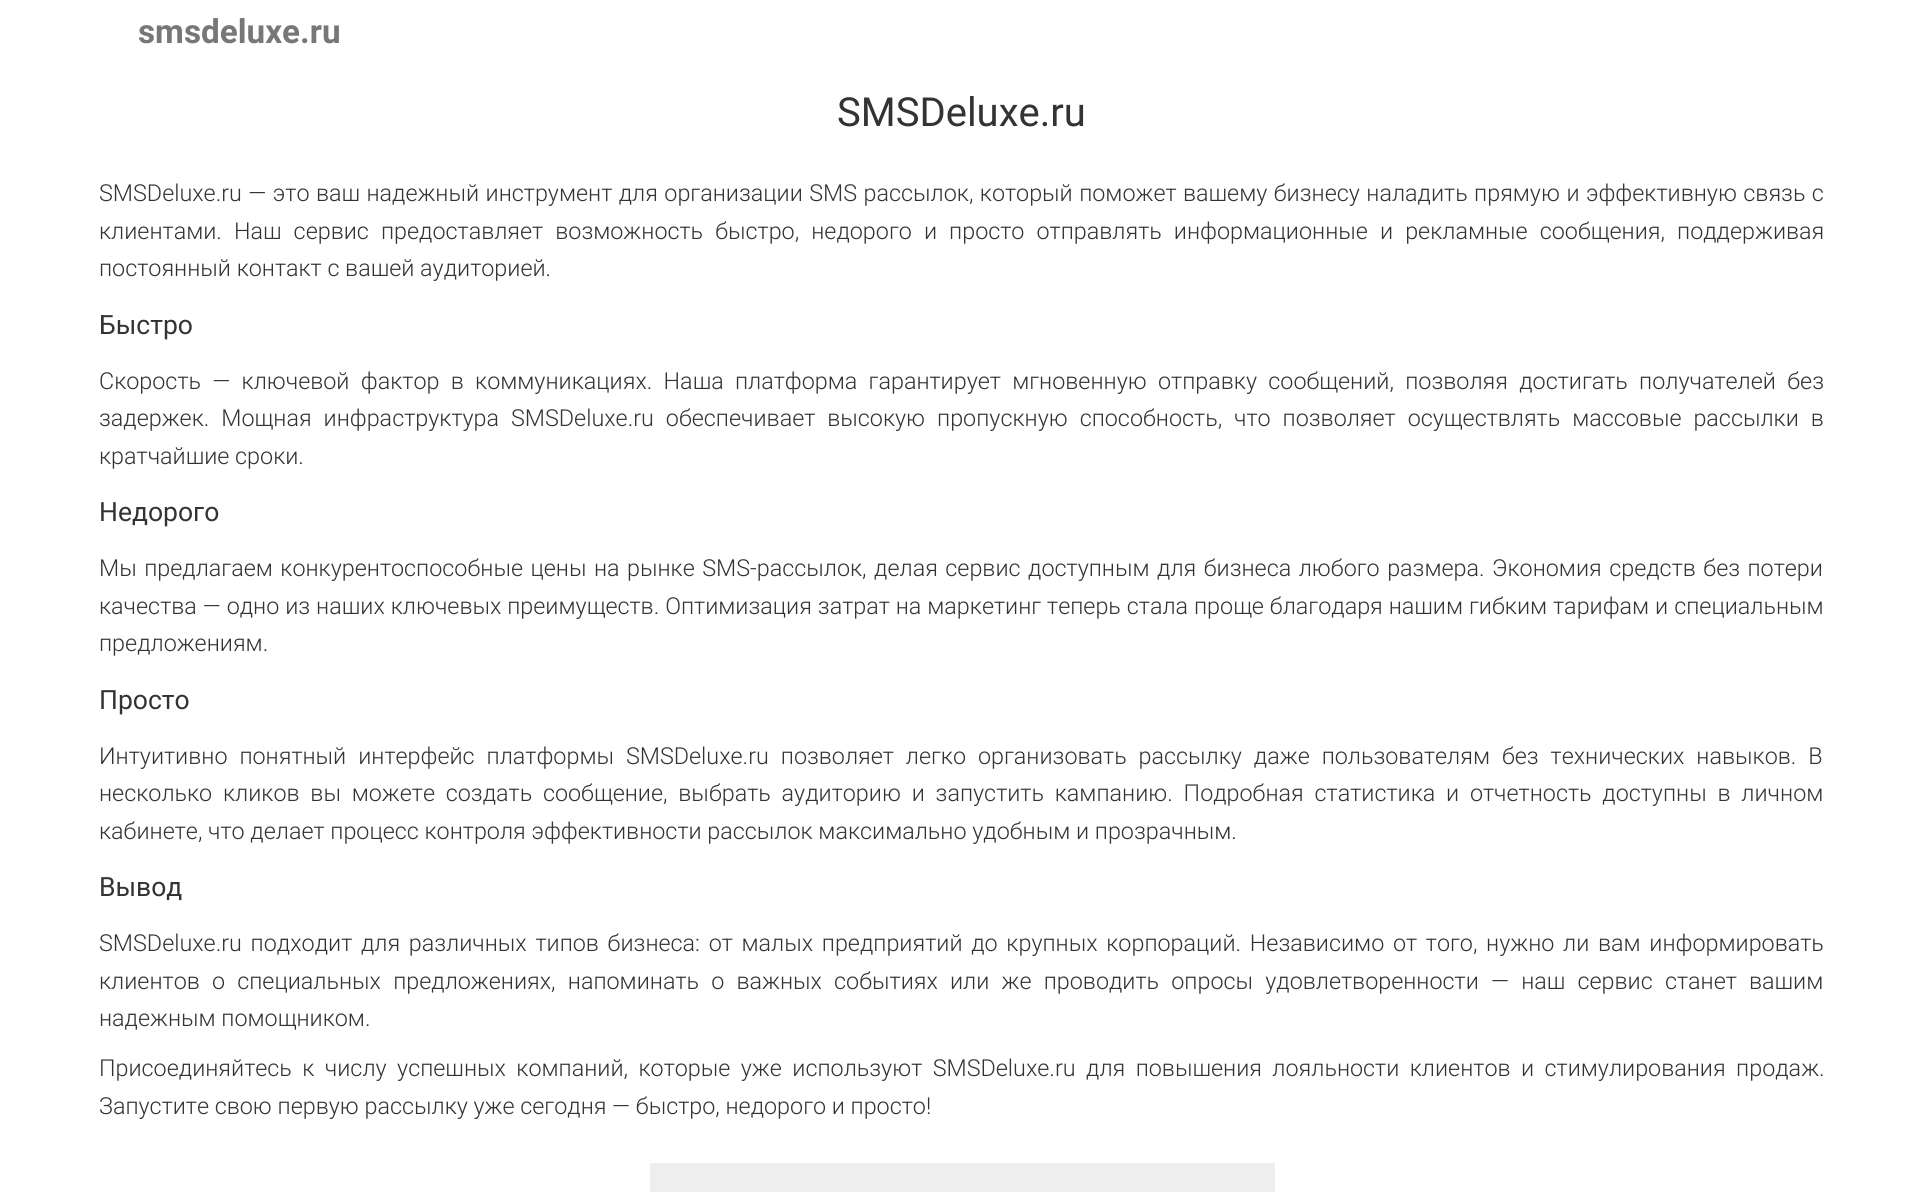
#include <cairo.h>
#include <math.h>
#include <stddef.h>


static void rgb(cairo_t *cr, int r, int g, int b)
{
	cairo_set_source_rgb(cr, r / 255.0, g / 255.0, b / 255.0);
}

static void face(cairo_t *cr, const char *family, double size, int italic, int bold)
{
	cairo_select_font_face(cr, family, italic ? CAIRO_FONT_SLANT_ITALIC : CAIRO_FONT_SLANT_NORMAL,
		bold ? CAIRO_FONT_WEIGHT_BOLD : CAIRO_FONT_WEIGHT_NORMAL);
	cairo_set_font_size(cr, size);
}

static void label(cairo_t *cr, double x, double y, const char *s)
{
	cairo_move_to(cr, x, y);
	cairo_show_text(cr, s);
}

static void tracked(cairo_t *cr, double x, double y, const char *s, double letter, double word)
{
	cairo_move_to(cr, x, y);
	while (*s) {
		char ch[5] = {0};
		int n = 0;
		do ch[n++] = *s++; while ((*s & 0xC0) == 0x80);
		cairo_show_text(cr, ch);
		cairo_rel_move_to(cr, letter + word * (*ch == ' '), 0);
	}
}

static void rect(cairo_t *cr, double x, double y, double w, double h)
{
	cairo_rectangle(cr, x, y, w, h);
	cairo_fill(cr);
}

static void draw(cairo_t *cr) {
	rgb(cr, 255, 255, 255);
	cairo_paint(cr);
	face(cr, "Roboto", 33.25, 0, 1);
	rgb(cr, 119, 119, 119);
	label(cr, 138, 43, "smsdeluxe.ru");
	face(cr, "Roboto", 40, 0, 0);
	rgb(cr, 51, 51, 51);
	label(cr, 837, 126, "SMSDeluxe.ru");
	face(cr, "Roboto Light", 23.33, 0, 0);
	tracked(cr, 99, 201, "SMSDeluxe.ru — это ваш надежный инструмент для организации SMS рассылок, который поможет вашему бизнесу наладить прямую и эффективную связь с", 0, 0.75);
	tracked(cr, 99, 239, "клиентами. Наш сервис предоставляет возможность быстро, недорого и просто отправлять информационные и рекламные сообщения, поддерживая", 0, 6.4);
	label(cr, 99, 276, "постоянный контакт с вашей аудиторией.");
	face(cr, "Roboto", 26.5, 0, 0);
	label(cr, 99, 334, "Быстро");
	face(cr, "Roboto Light", 23.33, 0, 0);
	tracked(cr, 99, 389, "Скорость — ключевой фактор в коммуникациях. Наша платформа гарантирует мгновенную отправку сообщений, позволяя достигать получателей без", 0, 5.6);
	tracked(cr, 99, 426, "задержек. Мощная инфраструктура SMSDeluxe.ru обеспечивает высокую пропускную способность, что позволяет осуществлять массовые рассылки в", 0, 6.25);
	label(cr, 99, 464, "кратчайшие сроки.");
	face(cr, "Roboto", 26.5, 0, 0);
	label(cr, 99, 521, "Недорого");
	face(cr, "Roboto Light", 23.33, 0, 0);
	tracked(cr, 99, 576, "Мы предлагаем конкурентоспособные цены на рынке SMS-рассылок, делая сервис доступным для бизнеса любого размера. Экономия средств без потери", 0, 1.8);
	tracked(cr, 99, 614, "качества — одно из наших ключевых преимуществ. Оптимизация затрат на маркетинг теперь стала проще благодаря нашим гибким тарифам и специальным", 0, 0.25);
	label(cr, 99, 651, "предложениям.");
	face(cr, "Roboto", 26.5, 0, 0);
	label(cr, 99, 709, "Просто");
	face(cr, "Roboto Light", 23.33, 0, 0);
	tracked(cr, 99, 764, "Интуитивно понятный интерфейс платформы SMSDeluxe.ru позволяет легко организовать рассылку даже пользователям без технических навыков. В", 0, 6.25);
	tracked(cr, 99, 801, "несколько кликов вы можете создать сообщение, выбрать аудиторию и запустить кампанию. Подробная статистика и отчетность доступны в личном", 0, 5.1);
	label(cr, 99, 839, "кабинете, что делает процесс контроля эффективности рассылок максимально удобным и прозрачным.");
	face(cr, "Roboto", 26.5, 0, 0);
	label(cr, 99, 896, "Вывод");
	face(cr, "Roboto Light", 23.33, 0, 0);
	tracked(cr, 99, 951, "SMSDeluxe.ru подходит для различных типов бизнеса: от малых предприятий до крупных корпораций. Независимо от того, нужно ли вам информировать", 0, 3);
	tracked(cr, 99, 989, "клиентов о специальных предложениях, напоминать о важных событиях или же проводить опросы удовлетворенности — наш сервис станет вашим", 0, 6.5);
	label(cr, 99, 1026, "надежным помощником.");
	tracked(cr, 99, 1076, "Присоединяйтесь к числу успешных компаний, которые уже используют SMSDeluxe.ru для повышения лояльности клиентов и стимулирования продаж.", 0, 4.75);
	label(cr, 99, 1114, "Запустите свою первую рассылку уже сегодня — быстро, недорого и просто!");
	rgb(cr, 238, 238, 238);
	rect(cr, 650, 1163, 625, 29);
}

int main(void) {
	cairo_surface_t *surface = cairo_image_surface_create(CAIRO_FORMAT_RGB24, 1923, 1192);
	cairo_t *cr = cairo_create(surface);
	cairo_font_options_t *options = cairo_font_options_create();
	cairo_font_options_set_hint_metrics(options, CAIRO_HINT_METRICS_OFF);
	cairo_font_options_set_hint_style(options, CAIRO_HINT_STYLE_NONE);
	cairo_set_font_options(cr, options);
	cairo_set_miter_limit(cr, 4);
	draw(cr);
	cairo_surface_write_to_png(surface, "render.png");
	cairo_font_options_destroy(options);
	cairo_destroy(cr);
	cairo_surface_destroy(surface);
	return 0;
}
